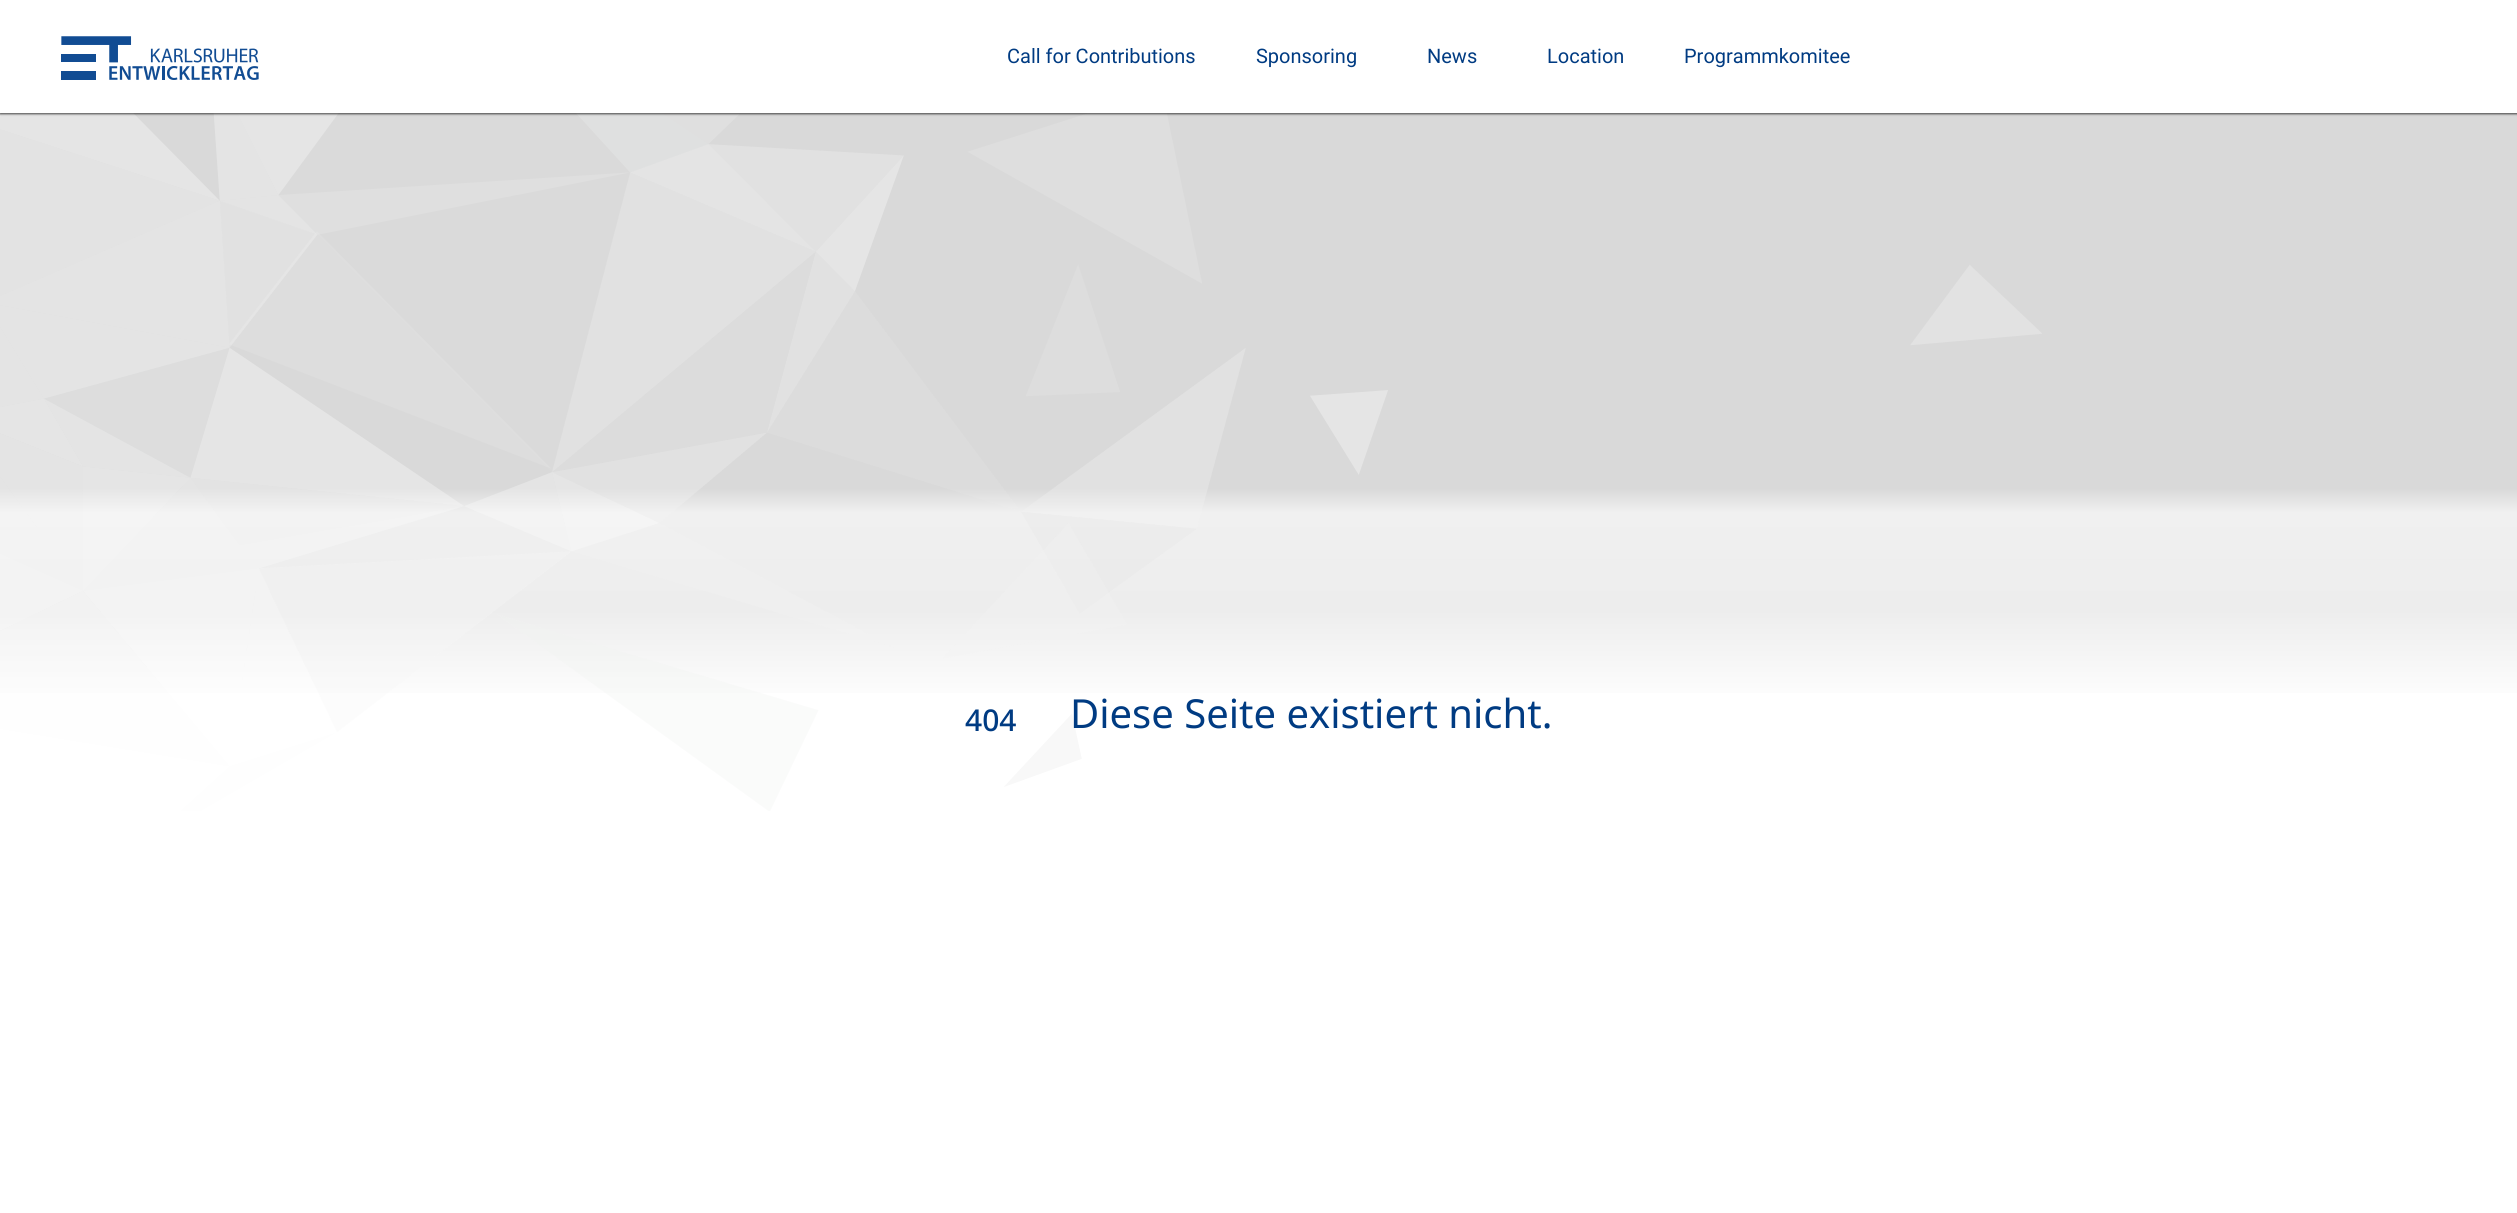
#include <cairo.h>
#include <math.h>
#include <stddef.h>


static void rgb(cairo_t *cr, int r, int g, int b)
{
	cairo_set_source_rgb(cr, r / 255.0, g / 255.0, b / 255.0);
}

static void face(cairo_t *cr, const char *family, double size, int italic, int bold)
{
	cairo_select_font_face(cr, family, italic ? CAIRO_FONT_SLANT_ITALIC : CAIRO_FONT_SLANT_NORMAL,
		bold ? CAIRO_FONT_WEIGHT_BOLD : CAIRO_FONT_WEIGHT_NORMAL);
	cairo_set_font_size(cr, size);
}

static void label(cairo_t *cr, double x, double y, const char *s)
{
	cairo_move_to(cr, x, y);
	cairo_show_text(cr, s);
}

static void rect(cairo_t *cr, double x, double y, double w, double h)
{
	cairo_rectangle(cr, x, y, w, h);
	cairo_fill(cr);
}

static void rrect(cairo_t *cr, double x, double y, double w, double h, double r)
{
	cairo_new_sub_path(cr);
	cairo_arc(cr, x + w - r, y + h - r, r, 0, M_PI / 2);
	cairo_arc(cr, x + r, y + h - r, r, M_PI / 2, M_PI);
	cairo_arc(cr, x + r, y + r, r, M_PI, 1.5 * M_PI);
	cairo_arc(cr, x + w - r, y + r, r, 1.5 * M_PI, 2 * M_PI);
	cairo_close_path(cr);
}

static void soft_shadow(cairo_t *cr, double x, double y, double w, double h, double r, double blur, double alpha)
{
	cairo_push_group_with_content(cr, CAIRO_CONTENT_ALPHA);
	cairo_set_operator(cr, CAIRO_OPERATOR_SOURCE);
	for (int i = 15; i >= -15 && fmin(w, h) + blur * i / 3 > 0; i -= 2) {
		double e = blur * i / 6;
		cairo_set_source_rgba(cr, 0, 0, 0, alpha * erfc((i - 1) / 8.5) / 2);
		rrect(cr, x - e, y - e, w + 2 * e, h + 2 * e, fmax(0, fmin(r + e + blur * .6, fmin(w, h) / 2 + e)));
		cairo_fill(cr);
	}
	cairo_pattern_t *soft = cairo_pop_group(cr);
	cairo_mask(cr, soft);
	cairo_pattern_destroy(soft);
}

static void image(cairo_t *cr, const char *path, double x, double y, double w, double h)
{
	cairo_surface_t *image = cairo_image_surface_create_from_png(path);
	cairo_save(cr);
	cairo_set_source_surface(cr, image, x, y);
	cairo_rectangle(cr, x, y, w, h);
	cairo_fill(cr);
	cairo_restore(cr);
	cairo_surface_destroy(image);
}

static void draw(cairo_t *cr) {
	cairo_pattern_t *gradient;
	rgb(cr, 255, 255, 255);
	cairo_paint(cr);
	gradient = cairo_pattern_create_linear(1259, 112, 1259, 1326);
	cairo_pattern_add_color_stop_rgba(gradient, 0.31, 0.851, 0.851, 0.851, 1);
	cairo_pattern_add_color_stop_rgba(gradient, 0.33, 0.941, 0.941, 0.941, 1);
	cairo_pattern_add_color_stop_rgba(gradient, 0.41, 0.929, 0.929, 0.929, 1);
	cairo_pattern_add_color_stop_rgba(gradient, 0.49, 1, 1, 1, 1);
	cairo_set_source(cr, gradient);
	cairo_pattern_destroy(gradient);
	rect(cr, 0, 113, 2517, 580);
	image(cr, "image1.png", 0, 113, 2042, 698);
	rgb(cr, 0, 0, 0);
	soft_shadow(cr, 0, 1, 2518, 113, 0, 1, 0.4);
	soft_shadow(cr, 0, 1, 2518, 113, 0, 1, 0.4);
	rgb(cr, 255, 255, 255);
	rect(cr, 0, 0, 2517, 113);
	image(cr, "image0.png", 61, 36, 198, 44);
	face(cr, "Roboto", 20, 0, 0);
	rgb(cr, 0, 59, 130);
	label(cr, 1007, 63, "Call for Contributions");
	label(cr, 1256, 63, "Sponsoring");
	label(cr, 1427, 63, "News");
	label(cr, 1547, 63, "Location");
	label(cr, 1684, 63, "Programmkomitee");
	face(cr, "Noto Sans Medium", 30, 0, 0);
	label(cr, 965, 731, "404");
	face(cr, "Noto Sans", 40, 0, 0);
	label(cr, 1070, 728, "Diese Seite existiert nicht.");
}

int main(void) {
	cairo_surface_t *surface = cairo_image_surface_create(CAIRO_FORMAT_RGB24, 2517, 1213);
	cairo_t *cr = cairo_create(surface);
	cairo_font_options_t *options = cairo_font_options_create();
	cairo_font_options_set_hint_metrics(options, CAIRO_HINT_METRICS_OFF);
	cairo_font_options_set_hint_style(options, CAIRO_HINT_STYLE_NONE);
	cairo_set_font_options(cr, options);
	cairo_set_miter_limit(cr, 4);
	draw(cr);
	cairo_surface_write_to_png(surface, "render.png");
	cairo_font_options_destroy(options);
	cairo_destroy(cr);
	cairo_surface_destroy(surface);
	return 0;
}
